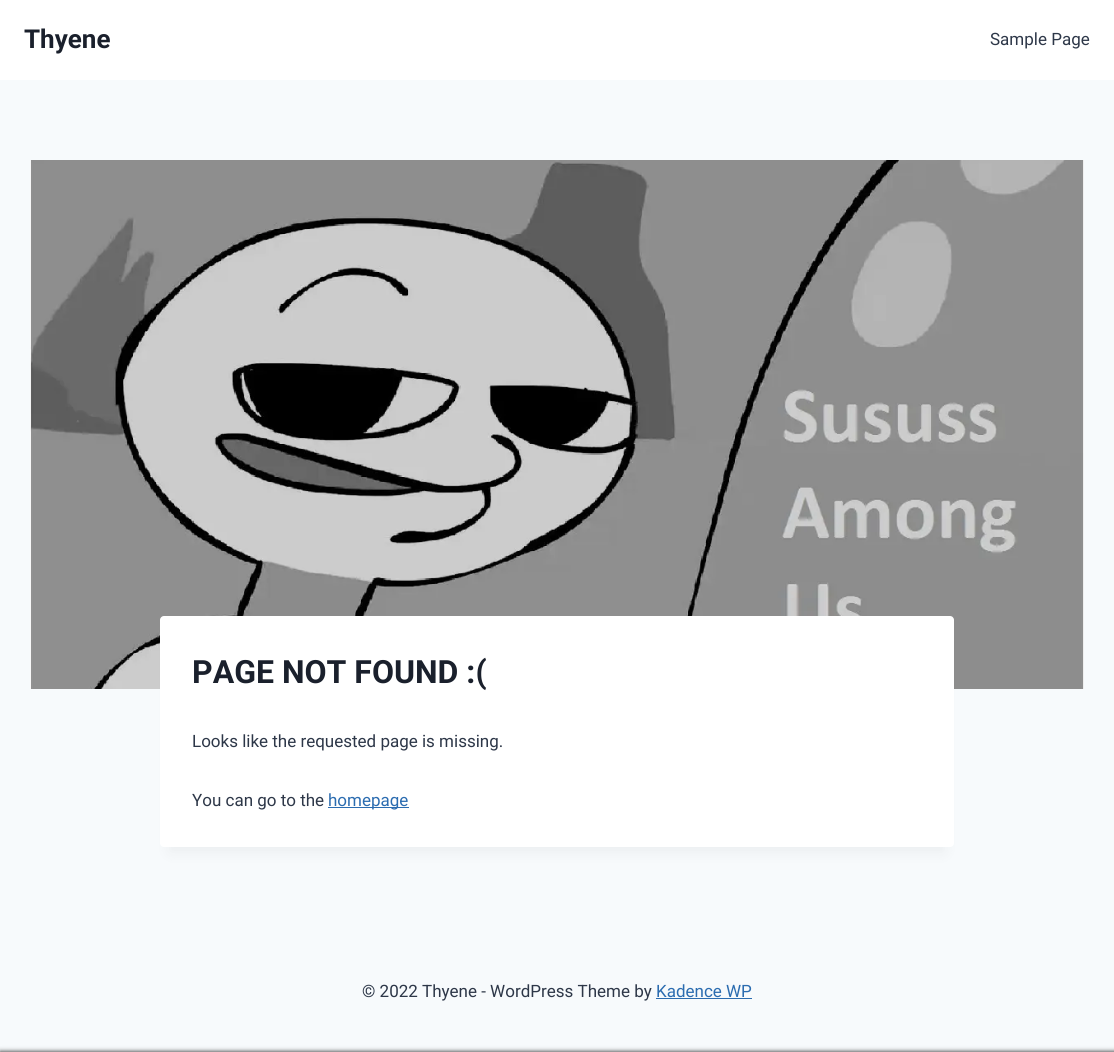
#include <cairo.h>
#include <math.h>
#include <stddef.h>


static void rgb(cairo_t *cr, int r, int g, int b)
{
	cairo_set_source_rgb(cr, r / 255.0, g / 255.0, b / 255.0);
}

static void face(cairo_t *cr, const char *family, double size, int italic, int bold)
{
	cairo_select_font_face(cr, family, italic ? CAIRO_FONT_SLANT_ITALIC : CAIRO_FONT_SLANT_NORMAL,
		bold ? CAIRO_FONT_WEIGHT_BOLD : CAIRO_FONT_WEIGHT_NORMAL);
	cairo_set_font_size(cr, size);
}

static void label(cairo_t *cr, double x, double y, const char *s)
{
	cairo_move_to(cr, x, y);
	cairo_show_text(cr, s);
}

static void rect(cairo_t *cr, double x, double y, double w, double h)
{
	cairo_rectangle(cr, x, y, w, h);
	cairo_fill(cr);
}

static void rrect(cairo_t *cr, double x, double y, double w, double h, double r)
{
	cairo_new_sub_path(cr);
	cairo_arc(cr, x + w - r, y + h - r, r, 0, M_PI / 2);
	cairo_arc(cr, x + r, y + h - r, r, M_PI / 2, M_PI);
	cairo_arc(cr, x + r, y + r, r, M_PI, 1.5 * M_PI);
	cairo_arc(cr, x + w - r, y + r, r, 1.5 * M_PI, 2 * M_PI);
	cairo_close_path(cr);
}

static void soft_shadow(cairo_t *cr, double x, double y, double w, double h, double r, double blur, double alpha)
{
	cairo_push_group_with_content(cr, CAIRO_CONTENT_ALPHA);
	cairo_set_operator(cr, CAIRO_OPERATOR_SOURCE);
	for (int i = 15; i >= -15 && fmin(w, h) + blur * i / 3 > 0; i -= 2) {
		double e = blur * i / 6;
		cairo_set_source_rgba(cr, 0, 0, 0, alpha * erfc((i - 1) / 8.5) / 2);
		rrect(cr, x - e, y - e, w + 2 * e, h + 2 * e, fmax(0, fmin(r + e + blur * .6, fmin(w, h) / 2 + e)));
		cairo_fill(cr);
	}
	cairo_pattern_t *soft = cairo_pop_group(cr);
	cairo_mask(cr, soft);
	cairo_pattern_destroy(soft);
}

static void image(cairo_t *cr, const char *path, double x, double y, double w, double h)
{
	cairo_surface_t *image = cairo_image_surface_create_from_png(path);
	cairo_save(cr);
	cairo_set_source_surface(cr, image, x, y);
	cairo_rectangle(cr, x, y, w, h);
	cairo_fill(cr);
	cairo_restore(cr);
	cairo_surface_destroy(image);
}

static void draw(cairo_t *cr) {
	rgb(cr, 247, 250, 252);
	cairo_paint(cr);
	rgb(cr, 255, 255, 255);
	rect(cr, 0, 0, 1114, 80);
	face(cr, "Roboto", 26, 0, 1);
	rgb(cr, 26, 32, 44);
	label(cr, 24, 48, "Thyene");
	face(cr, "Roboto", 17, 0, 0);
	rgb(cr, 45, 55, 72);
	label(cr, 990, 45, "Sample Page");
	image(cr, "image0.png", 30, 160, 1054, 529);
	rgb(cr, 0, 0, 0);
	soft_shadow(cr, 170, 641, 774, 211, 0, 7.5, 0.05);
	rgb(cr, 255, 255, 255);
	rrect(cr, 160, 616, 794, 231, 4);
	cairo_fill(cr);
	face(cr, "Roboto", 32, 0, 1);
	rgb(cr, 26, 32, 44);
	label(cr, 192, 683, "PAGE NOT FOUND :(");
	face(cr, "Roboto", 17, 0, 0);
	rgb(cr, 45, 55, 72);
	label(cr, 192, 747, "Looks like the requested page is missing.");
	label(cr, 192, 806, "You can go to the");
	rgb(cr, 43, 108, 176);
	rect(cr, 328, 807, 81, 1);
	label(cr, 328, 806, "homepage");
	rgb(cr, 45, 55, 72);
	label(cr, 362, 997, "© 2022 Thyene - WordPress Theme by");
	rgb(cr, 43, 108, 176);
	label(cr, 656, 997, "Kadence WP");
	rect(cr, 656, 998, 96, 1);
	rgb(cr, 22, 22, 22);
	soft_shadow(cr, 0, 1052, 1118, 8, 0, 2.5, 1);
}

int main(void) {
	cairo_surface_t *surface = cairo_image_surface_create(CAIRO_FORMAT_RGB24, 1114, 1052);
	cairo_t *cr = cairo_create(surface);
	cairo_font_options_t *options = cairo_font_options_create();
	cairo_font_options_set_hint_metrics(options, CAIRO_HINT_METRICS_OFF);
	cairo_font_options_set_hint_style(options, CAIRO_HINT_STYLE_NONE);
	cairo_set_font_options(cr, options);
	cairo_set_miter_limit(cr, 4);
	draw(cr);
	cairo_surface_write_to_png(surface, "render.png");
	cairo_font_options_destroy(options);
	cairo_destroy(cr);
	cairo_surface_destroy(surface);
	return 0;
}
